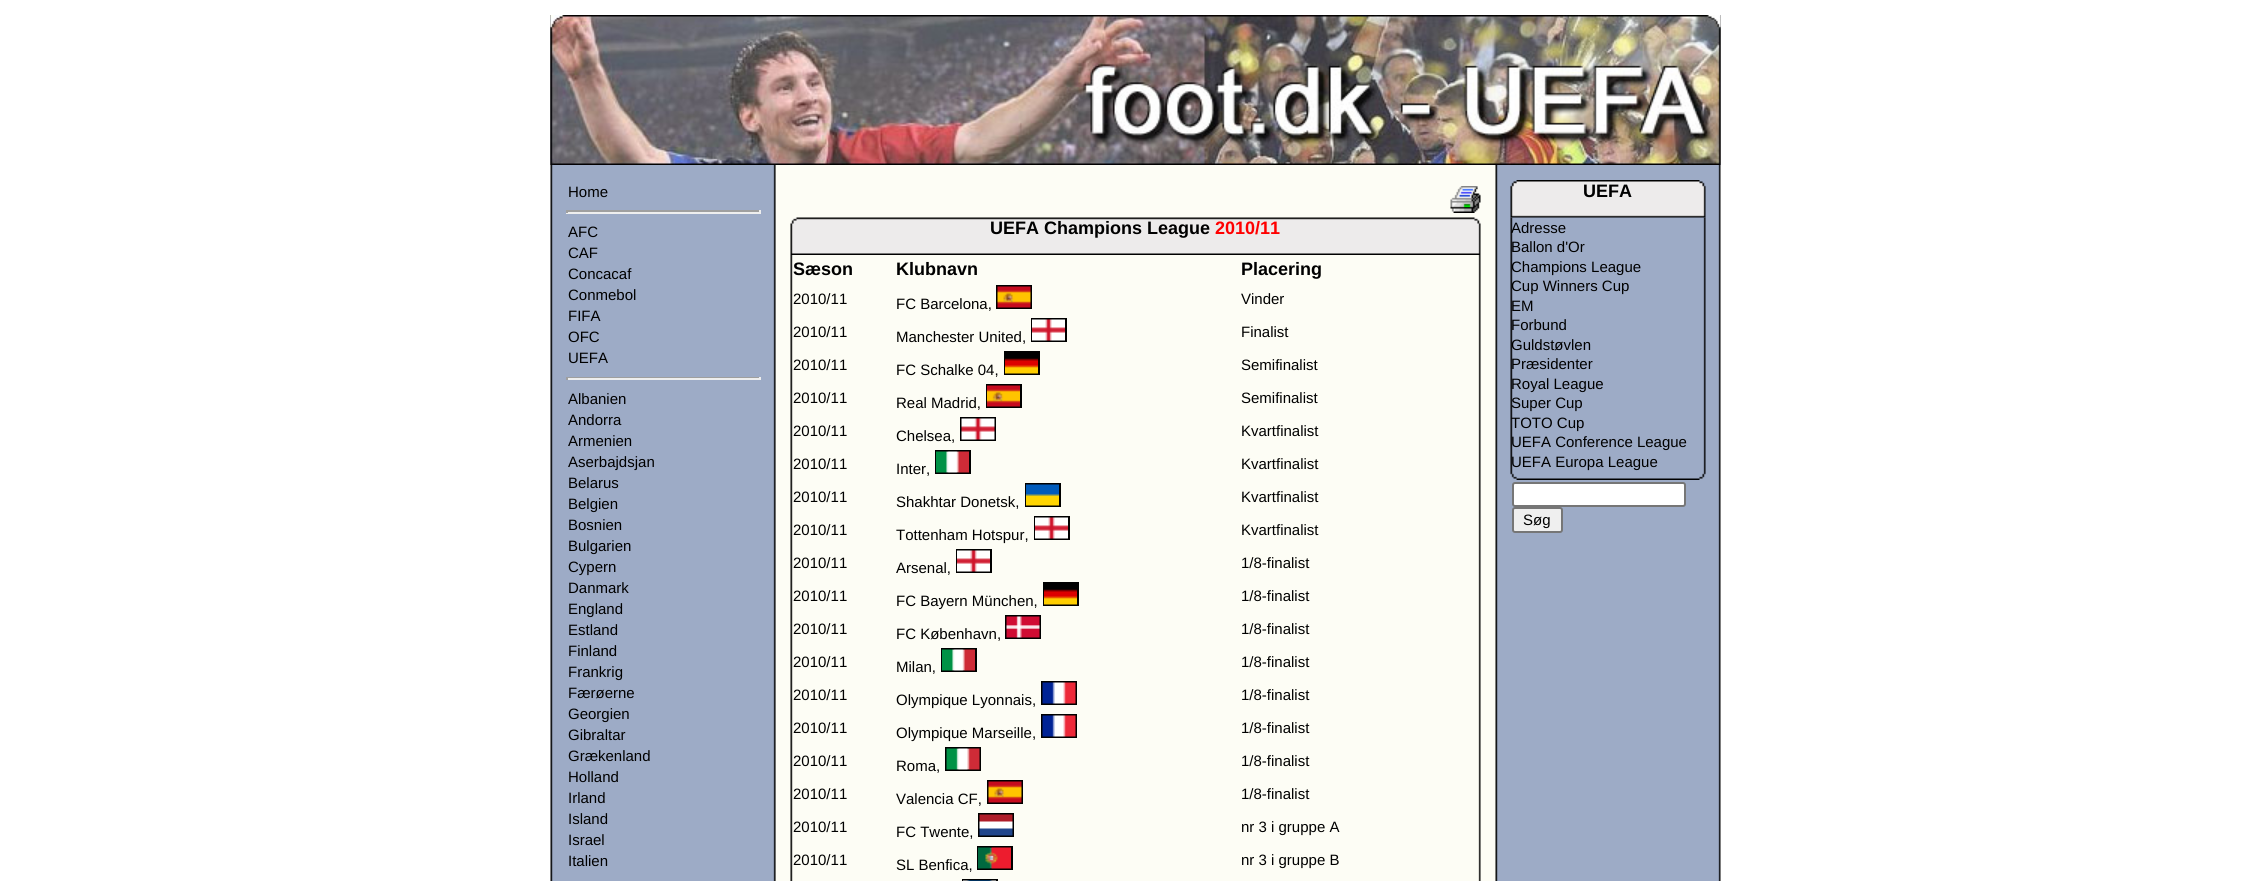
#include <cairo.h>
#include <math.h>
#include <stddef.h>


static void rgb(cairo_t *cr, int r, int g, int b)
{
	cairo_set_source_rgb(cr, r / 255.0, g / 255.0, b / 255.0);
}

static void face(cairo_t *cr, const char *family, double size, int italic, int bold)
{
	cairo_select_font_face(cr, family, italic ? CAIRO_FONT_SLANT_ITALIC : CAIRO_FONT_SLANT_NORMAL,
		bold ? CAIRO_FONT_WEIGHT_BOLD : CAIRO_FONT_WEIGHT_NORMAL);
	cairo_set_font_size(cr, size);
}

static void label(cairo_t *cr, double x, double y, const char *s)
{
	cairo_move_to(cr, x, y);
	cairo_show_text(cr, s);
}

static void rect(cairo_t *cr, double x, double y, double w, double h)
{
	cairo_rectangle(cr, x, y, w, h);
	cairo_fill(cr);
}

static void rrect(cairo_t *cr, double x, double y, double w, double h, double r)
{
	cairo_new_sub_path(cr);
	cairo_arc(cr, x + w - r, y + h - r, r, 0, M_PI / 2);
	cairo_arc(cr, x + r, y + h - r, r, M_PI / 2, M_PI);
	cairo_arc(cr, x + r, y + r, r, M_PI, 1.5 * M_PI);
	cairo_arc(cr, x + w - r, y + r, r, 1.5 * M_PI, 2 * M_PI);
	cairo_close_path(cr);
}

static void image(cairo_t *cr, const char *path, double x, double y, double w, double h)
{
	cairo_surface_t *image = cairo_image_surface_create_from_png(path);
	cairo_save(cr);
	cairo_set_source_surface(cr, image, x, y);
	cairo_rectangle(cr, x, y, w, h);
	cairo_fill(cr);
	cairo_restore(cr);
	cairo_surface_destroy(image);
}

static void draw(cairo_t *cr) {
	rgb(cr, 255, 255, 255);
	cairo_paint(cr);
	image(cr, "image0.png", 550, 15, 1171, 866);
	image(cr, "image1.png", 550, 15, 1171, 150);
	face(cr, "Liberation Sans", 15, 0, 0);
	rgb(cr, 0, 0, 0);
	label(cr, 568, 197, "Home");
	rgb(cr, 159, 159, 159);
	rect(cr, 566, 210, 195, 2);
	rgb(cr, 238, 238, 238);
	rect(cr, 759, 210, 2, 3);
	rect(cr, 566, 212, 195, 2);
	rgb(cr, 159, 159, 159);
	rect(cr, 566, 210, 2, 3);
	rgb(cr, 0, 0, 0);
	label(cr, 568, 237, "AFC");
	label(cr, 568, 258, "CAF");
	label(cr, 568, 279, "Concacaf");
	label(cr, 568, 300, "Conmebol");
	label(cr, 568, 321, "FIFA");
	label(cr, 568, 342, "OFC");
	label(cr, 568, 363, "UEFA");
	rgb(cr, 159, 159, 159);
	rect(cr, 566, 377, 195, 1);
	rgb(cr, 238, 238, 238);
	rect(cr, 759, 377, 2, 3);
	rect(cr, 566, 378, 195, 2);
	rgb(cr, 159, 159, 159);
	rect(cr, 566, 377, 2, 3);
	rgb(cr, 0, 0, 0);
	label(cr, 568, 404, "Albanien");
	label(cr, 568, 425, "Andorra");
	label(cr, 568, 446, "Armenien");
	label(cr, 568, 467, "Aserbajdsjan");
	label(cr, 568, 488, "Belarus");
	label(cr, 568, 509, "Belgien");
	label(cr, 568, 530, "Bosnien");
	label(cr, 568, 551, "Bulgarien");
	label(cr, 568, 572, "Cypern");
	label(cr, 568, 593, "Danmark");
	label(cr, 568, 614, "England");
	label(cr, 568, 635, "Estland");
	label(cr, 568, 656, "Finland");
	label(cr, 568, 677, "Frankrig");
	label(cr, 568, 698, "Færøerne");
	label(cr, 568, 719, "Georgien");
	label(cr, 568, 740, "Gibraltar");
	label(cr, 568, 761, "Grækenland");
	label(cr, 568, 782, "Holland");
	label(cr, 568, 803, "Irland");
	label(cr, 568, 824, "Island");
	label(cr, 568, 845, "Israel");
	label(cr, 568, 866, "Italien");
	image(cr, "image2.png", 1450, 186, 31, 27);
	image(cr, "image3.png", 790, 217, 691, 38);
	face(cr, "Liberation Sans", 18, 0, 1);
	label(cr, 990, 234, "UEFA Champions League");
	rgb(cr, 255, 0, 0);
	label(cr, 1215, 234, "2010/11");
	image(cr, "image4.png", 790, 255, 691, 626);
	rgb(cr, 0, 0, 0);
	label(cr, 793, 275, "Sæson");
	label(cr, 896, 275, "Klubnavn");
	label(cr, 1241, 275, "Placering");
	face(cr, "Liberation Sans", 15, 0, 0);
	label(cr, 793, 304, "2010/11");
	cairo_rectangle(cr, 997, 286, 34, 22);
	cairo_stroke(cr);
	label(cr, 896, 309, "FC Barcelona,");
	image(cr, "image5.png", 997, 286, 34, 22);
	label(cr, 1241, 304, "Vinder");
	label(cr, 793, 337, "2010/11");
	cairo_rectangle(cr, 1032, 319, 34, 22);
	cairo_stroke(cr);
	label(cr, 896, 342, "Manchester United,");
	image(cr, "image6.png", 1032, 319, 33, 22);
	label(cr, 1241, 337, "Finalist");
	label(cr, 793, 370, "2010/11");
	cairo_rectangle(cr, 1005, 352, 34, 22);
	cairo_stroke(cr);
	label(cr, 896, 375, "FC Schalke 04,");
	image(cr, "image7.png", 1005, 353, 33, 21);
	label(cr, 1241, 370, "Semifinalist");
	label(cr, 793, 403, "2010/11");
	cairo_rectangle(cr, 987, 385, 34, 22);
	cairo_stroke(cr);
	label(cr, 896, 408, "Real Madrid,");
	image(cr, "image8.png", 987, 385, 33, 22);
	label(cr, 1241, 403, "Semifinalist");
	label(cr, 793, 436, "2010/11");
	cairo_rectangle(cr, 961, 418, 34, 22);
	cairo_stroke(cr);
	label(cr, 896, 441, "Chelsea,");
	image(cr, "image9.png", 961, 418, 34, 22);
	label(cr, 1241, 436, "Kvartfinalist");
	label(cr, 793, 469, "2010/11");
	cairo_rectangle(cr, 936, 451, 34, 22);
	cairo_stroke(cr);
	label(cr, 896, 474, "Inter,");
	image(cr, "image10.png", 936, 451, 33, 22);
	label(cr, 1241, 469, "Kvartfinalist");
	label(cr, 793, 502, "2010/11");
	cairo_rectangle(cr, 1026, 484, 34, 22);
	cairo_stroke(cr);
	label(cr, 896, 507, "Shakhtar Donetsk,");
	image(cr, "image11.png", 1026, 484, 33, 22);
	label(cr, 1241, 502, "Kvartfinalist");
	label(cr, 793, 535, "2010/11");
	cairo_rectangle(cr, 1035, 517, 34, 22);
	cairo_stroke(cr);
	label(cr, 896, 540, "Tottenham Hotspur,");
	image(cr, "image6.png", 1035, 517, 33, 22);
	label(cr, 1241, 535, "Kvartfinalist");
	label(cr, 793, 568, "2010/11");
	cairo_rectangle(cr, 957, 550, 34, 22);
	cairo_stroke(cr);
	label(cr, 896, 573, "Arsenal,");
	image(cr, "image12.png", 957, 550, 33, 22);
	label(cr, 1241, 568, "1/8-finalist");
	label(cr, 793, 601, "2010/11");
	cairo_rectangle(cr, 1044, 583, 34, 22);
	cairo_stroke(cr);
	label(cr, 896, 606, "FC Bayern München,");
	image(cr, "image7.png", 1044, 584, 33, 21);
	label(cr, 1241, 601, "1/8-finalist");
	label(cr, 793, 634, "2010/11");
	cairo_rectangle(cr, 1006, 616, 34, 22);
	cairo_stroke(cr);
	label(cr, 896, 639, "FC København,");
	image(cr, "image13.png", 1006, 616, 34, 22);
	label(cr, 1241, 634, "1/8-finalist");
	label(cr, 793, 667, "2010/11");
	cairo_rectangle(cr, 942, 649, 34, 22);
	cairo_stroke(cr);
	label(cr, 896, 672, "Milan,");
	image(cr, "image10.png", 942, 649, 33, 22);
	label(cr, 1241, 667, "1/8-finalist");
	label(cr, 793, 700, "2010/11");
	cairo_rectangle(cr, 1042, 682, 34, 22);
	cairo_stroke(cr);
	label(cr, 896, 705, "Olympique Lyonnais,");
	image(cr, "image14.png", 1042, 682, 34, 22);
	label(cr, 1241, 700, "1/8-finalist");
	label(cr, 793, 733, "2010/11");
	cairo_rectangle(cr, 1042, 715, 34, 22);
	cairo_stroke(cr);
	label(cr, 896, 738, "Olympique Marseille,");
	image(cr, "image14.png", 1042, 715, 34, 22);
	label(cr, 1241, 733, "1/8-finalist");
	label(cr, 793, 766, "2010/11");
	cairo_rectangle(cr, 946, 748, 34, 22);
	cairo_stroke(cr);
	label(cr, 896, 771, "Roma,");
	image(cr, "image15.png", 946, 748, 34, 22);
	label(cr, 1241, 766, "1/8-finalist");
	label(cr, 793, 799, "2010/11");
	cairo_rectangle(cr, 988, 781, 34, 22);
	cairo_stroke(cr);
	label(cr, 896, 804, "Valencia CF,");
	image(cr, "image5.png", 988, 781, 34, 22);
	label(cr, 1241, 799, "1/8-finalist");
	label(cr, 793, 832, "2010/11");
	cairo_rectangle(cr, 979, 814, 34, 22);
	cairo_stroke(cr);
	label(cr, 896, 837, "FC Twente,");
	image(cr, "image16.png", 979, 814, 34, 22);
	label(cr, 1241, 832, "nr 3 i gruppe A");
	label(cr, 793, 865, "2010/11");
	cairo_rectangle(cr, 978, 847, 34, 22);
	cairo_stroke(cr);
	label(cr, 896, 870, "SL Benfica,");
	image(cr, "image17.png", 978, 847, 33, 22);
	label(cr, 1241, 865, "nr 3 i gruppe B");
	cairo_rectangle(cr, 963, 880, 34, 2);
	cairo_stroke(cr);
	image(cr, "image18.png", 963, 880, 33, 1);
	image(cr, "image19.png", 1510, 180, 196, 38);
	face(cr, "Liberation Sans", 18, 0, 1);
	label(cr, 1583, 197, "UEFA");
	image(cr, "image20.png", 1510, 217, 196, 254);
	face(cr, "Liberation Sans", 15, 0, 0);
	label(cr, 1511, 233, "Adresse");
	label(cr, 1511, 252, "Ballon d'Or");
	label(cr, 1511, 272, "Champions League");
	label(cr, 1511, 291, "Cup Winners Cup");
	label(cr, 1511, 311, "EM");
	label(cr, 1511, 330, "Forbund");
	label(cr, 1511, 350, "Guldstøvlen");
	label(cr, 1511, 369, "Præsidenter");
	label(cr, 1511, 389, "Royal League");
	label(cr, 1511, 408, "Super Cup");
	label(cr, 1511, 428, "TOTO Cup");
	label(cr, 1511, 447, "UEFA Conference League");
	label(cr, 1511, 467, "UEFA Europa League");
	image(cr, "image21.png", 1510, 471, 196, 9);
	rgb(cr, 255, 255, 255);
	rrect(cr, 1513, 483, 172, 23, 2);
	cairo_fill_preserve(cr);
	rgb(cr, 118, 118, 118);
	cairo_stroke(cr);
	rgb(cr, 239, 239, 239);
	rrect(cr, 1513, 508, 49, 24, 2);
	cairo_fill_preserve(cr);
	rgb(cr, 118, 118, 118);
	cairo_stroke(cr);
	rgb(cr, 0, 0, 0);
	label(cr, 1523, 525, "Søg");
}

int main(void) {
	cairo_surface_t *surface = cairo_image_surface_create(CAIRO_FORMAT_RGB24, 2266, 881);
	cairo_t *cr = cairo_create(surface);
	cairo_font_options_t *options = cairo_font_options_create();
	cairo_font_options_set_hint_metrics(options, CAIRO_HINT_METRICS_OFF);
	cairo_font_options_set_hint_style(options, CAIRO_HINT_STYLE_NONE);
	cairo_set_font_options(cr, options);
	cairo_set_miter_limit(cr, 4);
	draw(cr);
	cairo_surface_write_to_png(surface, "render.png");
	cairo_font_options_destroy(options);
	cairo_destroy(cr);
	cairo_surface_destroy(surface);
	return 0;
}
